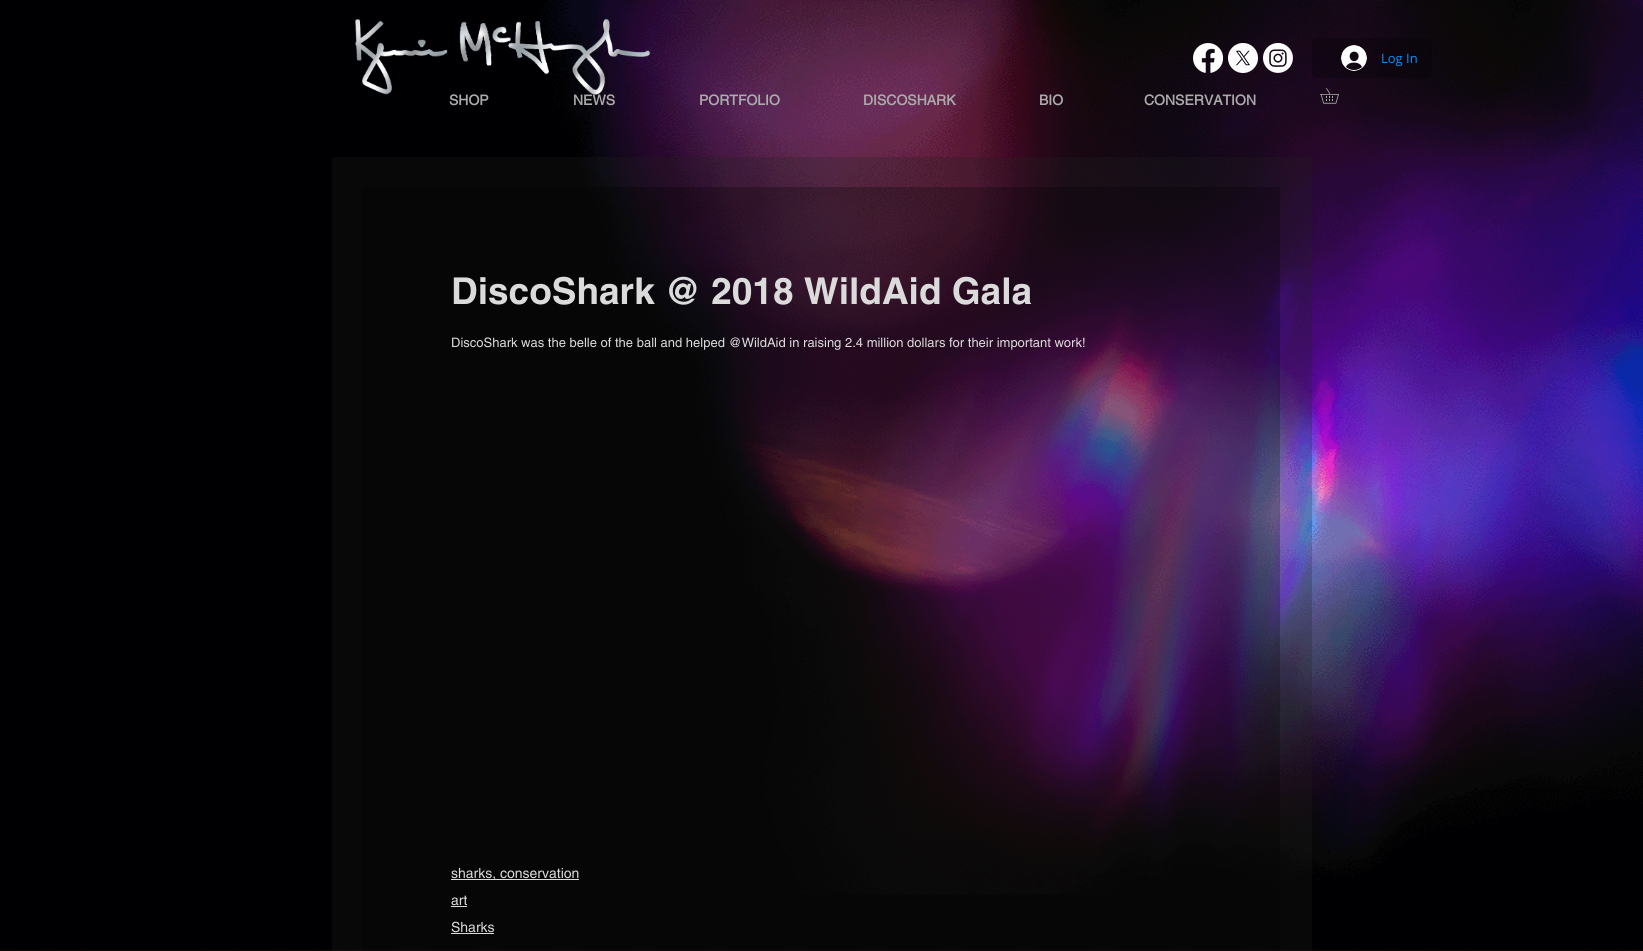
#include <cairo.h>
#include <math.h>
#include <stddef.h>


static void rgb(cairo_t *cr, int r, int g, int b)
{
	cairo_set_source_rgb(cr, r / 255.0, g / 255.0, b / 255.0);
}

static void face(cairo_t *cr, const char *family, double size, int italic, int bold)
{
	cairo_select_font_face(cr, family, italic ? CAIRO_FONT_SLANT_ITALIC : CAIRO_FONT_SLANT_NORMAL,
		bold ? CAIRO_FONT_WEIGHT_BOLD : CAIRO_FONT_WEIGHT_NORMAL);
	cairo_set_font_size(cr, size);
}

static void label(cairo_t *cr, double x, double y, const char *s)
{
	cairo_move_to(cr, x, y);
	cairo_show_text(cr, s);
}

static void rect(cairo_t *cr, double x, double y, double w, double h)
{
	cairo_rectangle(cr, x, y, w, h);
	cairo_fill(cr);
}

static void rrect(cairo_t *cr, double x, double y, double w, double h, double r)
{
	cairo_new_sub_path(cr);
	cairo_arc(cr, x + w - r, y + h - r, r, 0, M_PI / 2);
	cairo_arc(cr, x + r, y + h - r, r, M_PI / 2, M_PI);
	cairo_arc(cr, x + r, y + r, r, M_PI, 1.5 * M_PI);
	cairo_arc(cr, x + w - r, y + r, r, 1.5 * M_PI, 2 * M_PI);
	cairo_close_path(cr);
}

static void image(cairo_t *cr, const char *path, double x, double y, double w, double h)
{
	cairo_surface_t *image = cairo_image_surface_create_from_png(path);
	cairo_save(cr);
	cairo_set_source_surface(cr, image, x, y);
	cairo_rectangle(cr, x, y, w, h);
	cairo_fill(cr);
	cairo_restore(cr);
	cairo_surface_destroy(image);
}

static void draw(cairo_t *cr) {
	rgb(cr, 255, 255, 255);
	cairo_paint(cr);
	image(cr, "image0.png", 0, 0, 1643, 951);
	image(cr, "image1.png", 355, 19, 296, 76);
	image(cr, "image2.png", 1193, 43, 30, 30);
	image(cr, "image3.png", 1228, 43, 30, 30);
	image(cr, "image4.png", 1263, 43, 30, 30);
	cairo_set_source_rgba(cr, 0, 0, 0, 0.3);
	rrect(cr, 1312, 38, 120, 40, 5);
	cairo_fill(cr);
	image(cr, "image5.png", 1341, 45, 26, 26);
	face(cr, "Open Sans", 13, 0, 0);
	rgb(cr, 0, 148, 255);
	label(cr, 1381, 63, "Log In");
	face(cr, "helvetica", 14, 0, 1);
	rgb(cr, 171, 171, 171);
	label(cr, 449, 105, "SHOP");
	label(cr, 573, 105, "NEWS");
	label(cr, 699, 105, "PORTFOLIO");
	label(cr, 863, 105, "DISCOSHARK");
	label(cr, 1039, 105, "BIO");
	label(cr, 1144, 105, "CONSERVATION");
	image(cr, "image6.png", 1320, 88, 19, 16);
	cairo_set_source_rgba(cr, 0.137, 0.137, 0.137, 0.25);
	rect(cr, 332, 157, 980, 794);
	cairo_set_source_rgba(cr, 0, 0, 0, 0.25);
	rect(cr, 362, 187, 918, 764);
	face(cr, "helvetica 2", 37, 0, 1);
	rgb(cr, 219, 219, 219);
	label(cr, 451, 304, "DiscoShark @ 2018 WildAid Gala");
	face(cr, "helvetica", 13, 0, 0);
	label(cr, 451, 347, "DiscoShark was the belle of the ball and helped @WildAid in raising 2.4 million dollars for their important work!");
	rect(cr, 451, 879, 128, 1);
	face(cr, "helvetica", 14, 0, 0);
	label(cr, 451, 878, "sharks, conservation");
	label(cr, 451, 905, "art");
	rect(cr, 451, 906, 16, 1);
	label(cr, 451, 932, "Sharks");
	rect(cr, 451, 933, 43, 1);
}

int main(void) {
	cairo_surface_t *surface = cairo_image_surface_create(CAIRO_FORMAT_RGB24, 1643, 951);
	cairo_t *cr = cairo_create(surface);
	cairo_font_options_t *options = cairo_font_options_create();
	cairo_font_options_set_hint_metrics(options, CAIRO_HINT_METRICS_OFF);
	cairo_font_options_set_hint_style(options, CAIRO_HINT_STYLE_NONE);
	cairo_set_font_options(cr, options);
	cairo_set_miter_limit(cr, 4);
	draw(cr);
	cairo_surface_write_to_png(surface, "render.png");
	cairo_font_options_destroy(options);
	cairo_destroy(cr);
	cairo_surface_destroy(surface);
	return 0;
}
